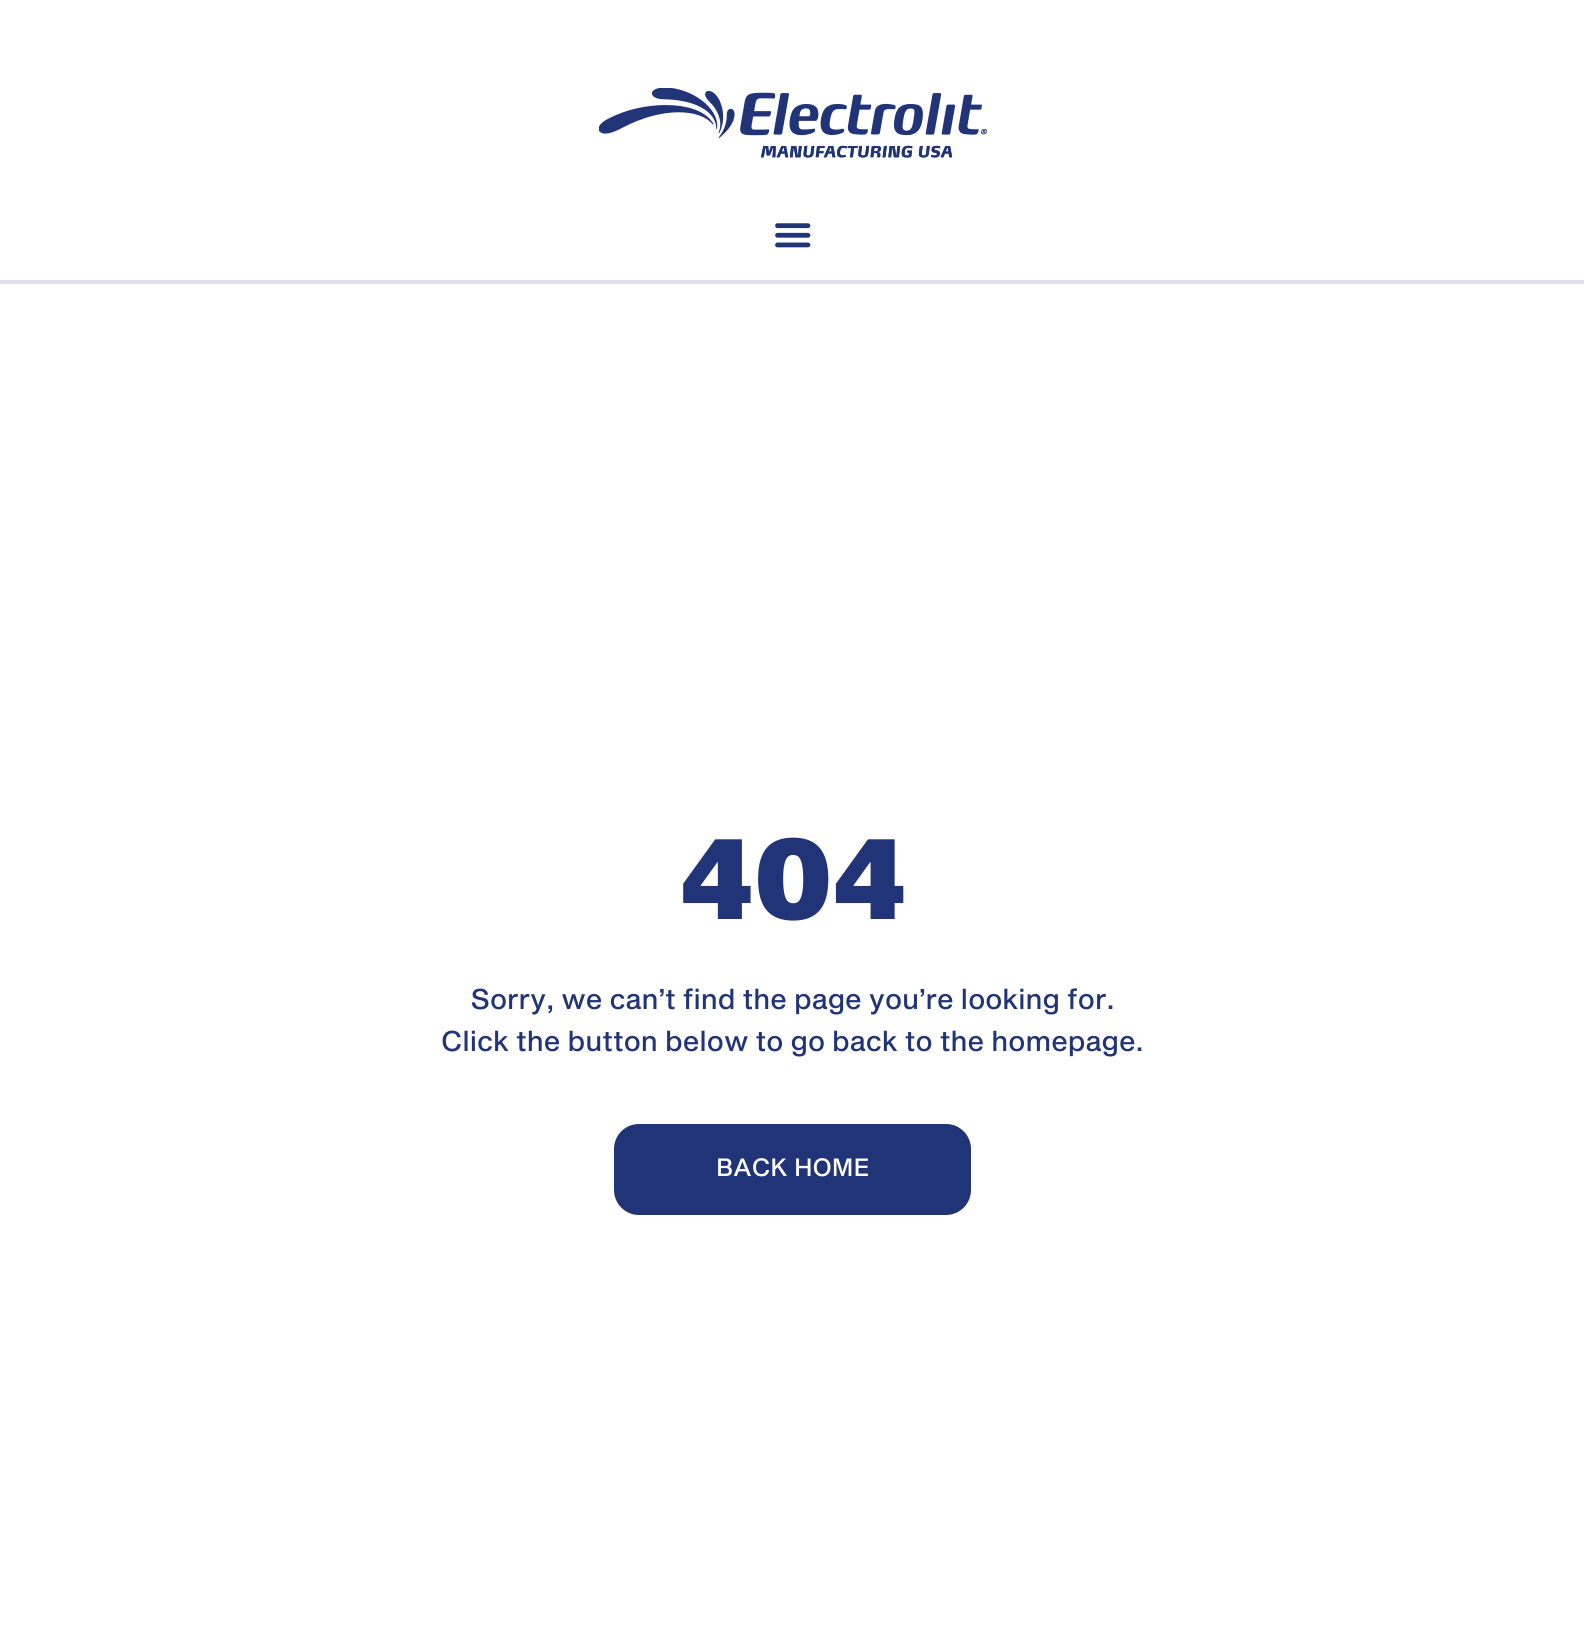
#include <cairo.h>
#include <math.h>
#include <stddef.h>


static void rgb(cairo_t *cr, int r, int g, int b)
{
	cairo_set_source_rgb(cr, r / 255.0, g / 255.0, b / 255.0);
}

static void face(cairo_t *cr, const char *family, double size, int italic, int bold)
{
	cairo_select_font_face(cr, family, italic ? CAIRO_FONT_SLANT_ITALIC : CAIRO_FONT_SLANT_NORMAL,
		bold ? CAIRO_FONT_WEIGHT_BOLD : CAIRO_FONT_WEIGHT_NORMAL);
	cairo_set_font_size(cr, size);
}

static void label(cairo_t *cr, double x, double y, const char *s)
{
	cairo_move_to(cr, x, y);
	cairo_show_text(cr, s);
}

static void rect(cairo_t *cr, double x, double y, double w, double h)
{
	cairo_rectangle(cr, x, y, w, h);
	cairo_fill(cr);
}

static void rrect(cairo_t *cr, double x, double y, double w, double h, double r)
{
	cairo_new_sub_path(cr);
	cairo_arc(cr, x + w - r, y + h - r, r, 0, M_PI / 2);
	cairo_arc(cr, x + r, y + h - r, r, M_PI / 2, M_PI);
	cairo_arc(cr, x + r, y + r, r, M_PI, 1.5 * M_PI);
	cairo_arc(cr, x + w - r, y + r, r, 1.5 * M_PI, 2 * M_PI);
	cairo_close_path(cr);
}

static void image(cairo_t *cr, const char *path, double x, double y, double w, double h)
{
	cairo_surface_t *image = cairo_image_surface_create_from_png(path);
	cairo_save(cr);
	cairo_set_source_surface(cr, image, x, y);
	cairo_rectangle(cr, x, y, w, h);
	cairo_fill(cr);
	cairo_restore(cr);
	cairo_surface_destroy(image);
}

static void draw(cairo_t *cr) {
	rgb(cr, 255, 255, 255);
	cairo_paint(cr);
	rgb(cr, 222, 225, 235);
	rect(cr, 0, 280, 1584, 4);
	image(cr, "image0.png", 599, 88, 388, 70);
	image(cr, "image1.png", 775, 223, 36, 25);
	face(cr, "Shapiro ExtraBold", 114, 0, 0);
	rgb(cr, 33, 52, 120);
	label(cr, 680, 919, "404");
	face(cr, "Shapiro ExtraLight", 28, 0, 0);
	label(cr, 471, 1009, "Sorry, we can’t find the page you’re looking for.");
	label(cr, 441, 1051, "Click the button below to go back to the homepage.");
	rrect(cr, 616.5, 1126.5, 352, 86, 22.5);
	cairo_fill_preserve(cr);
	cairo_set_line_width(cr, 5);
	cairo_stroke(cr);
	face(cr, "Shapiro ExtraLight", 24.5, 0, 0);
	rgb(cr, 255, 255, 255);
	label(cr, 716, 1176, "BACK HOME");
}

int main(void) {
	cairo_surface_t *surface = cairo_image_surface_create(CAIRO_FORMAT_RGB24, 1584, 1640);
	cairo_t *cr = cairo_create(surface);
	cairo_font_options_t *options = cairo_font_options_create();
	cairo_font_options_set_hint_metrics(options, CAIRO_HINT_METRICS_OFF);
	cairo_font_options_set_hint_style(options, CAIRO_HINT_STYLE_NONE);
	cairo_set_font_options(cr, options);
	cairo_set_miter_limit(cr, 4);
	draw(cr);
	cairo_surface_write_to_png(surface, "render.png");
	cairo_font_options_destroy(options);
	cairo_destroy(cr);
	cairo_surface_destroy(surface);
	return 0;
}
